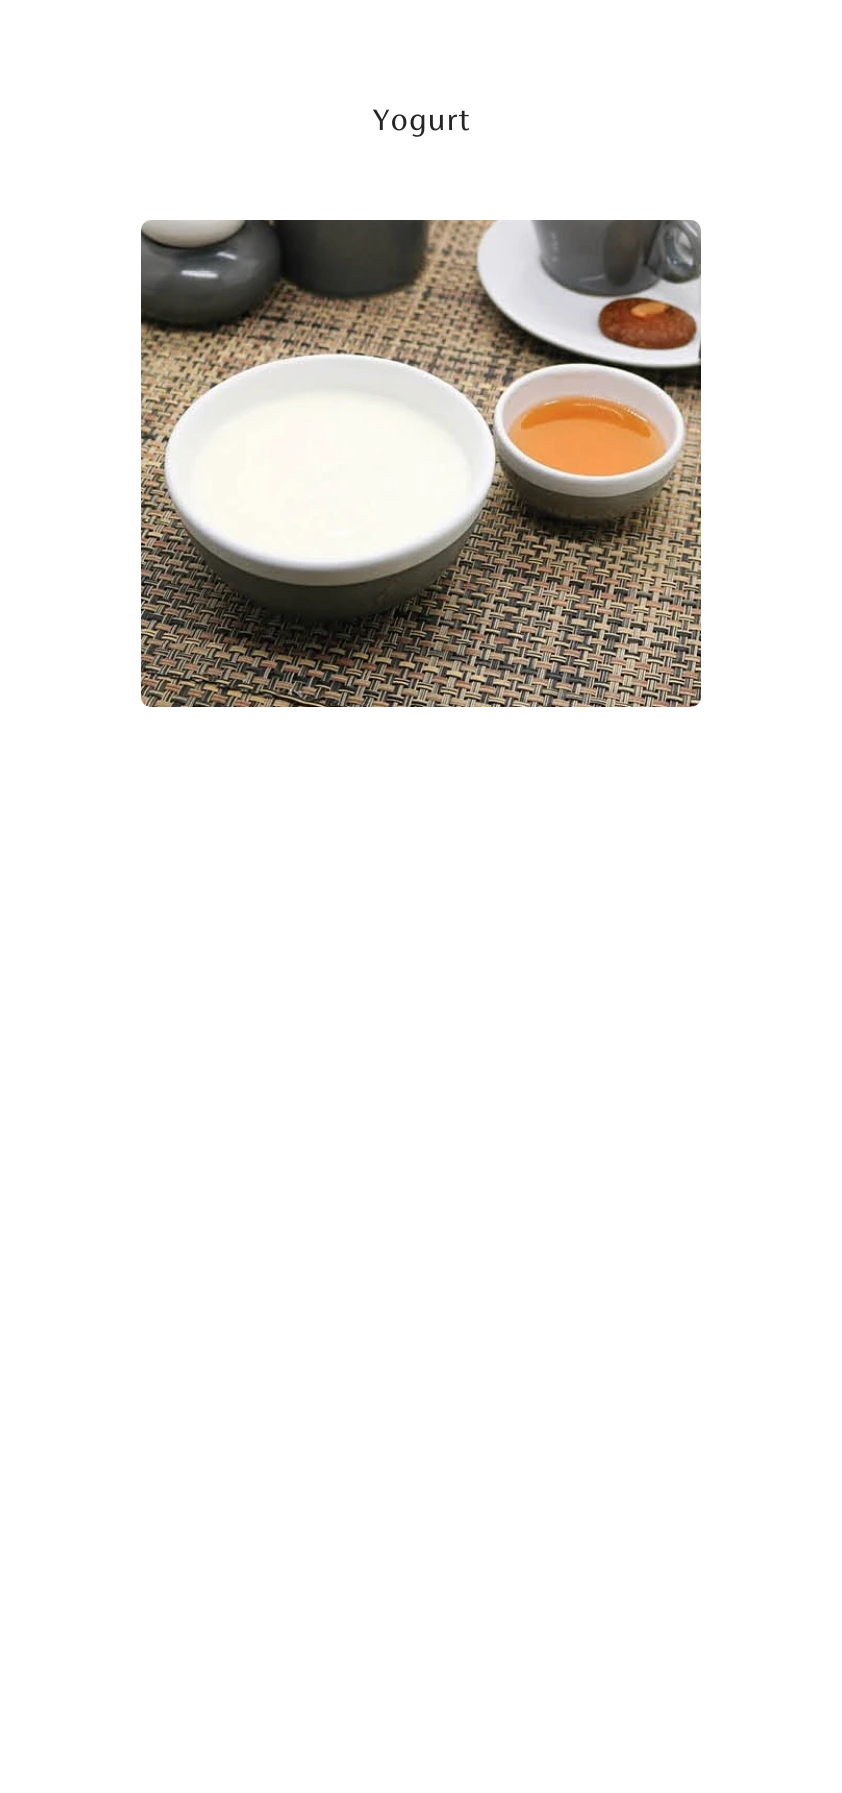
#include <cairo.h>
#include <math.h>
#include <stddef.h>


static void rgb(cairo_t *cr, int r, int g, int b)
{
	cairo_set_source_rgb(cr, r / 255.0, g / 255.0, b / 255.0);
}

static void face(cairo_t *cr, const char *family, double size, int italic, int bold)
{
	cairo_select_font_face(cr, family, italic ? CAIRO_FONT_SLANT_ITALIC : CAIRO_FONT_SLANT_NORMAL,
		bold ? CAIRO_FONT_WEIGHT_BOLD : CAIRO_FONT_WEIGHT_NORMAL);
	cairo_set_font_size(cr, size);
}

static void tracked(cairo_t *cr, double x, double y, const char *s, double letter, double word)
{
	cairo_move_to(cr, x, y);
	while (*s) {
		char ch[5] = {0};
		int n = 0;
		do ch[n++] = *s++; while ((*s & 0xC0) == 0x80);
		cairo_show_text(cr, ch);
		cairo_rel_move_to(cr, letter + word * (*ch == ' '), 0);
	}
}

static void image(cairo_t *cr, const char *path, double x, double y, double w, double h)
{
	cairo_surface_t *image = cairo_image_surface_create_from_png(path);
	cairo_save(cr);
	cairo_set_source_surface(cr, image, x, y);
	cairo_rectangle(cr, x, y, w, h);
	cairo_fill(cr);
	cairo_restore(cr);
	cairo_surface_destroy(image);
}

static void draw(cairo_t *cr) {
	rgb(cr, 255, 255, 255);
	cairo_paint(cr);
	face(cr, "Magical", 33, 0, 0);
	rgb(cr, 37, 37, 37);
	tracked(cr, 372, 130, "Yogurt", 1, 0);
	image(cr, "image0.png", 141, 220, 560, 487);
}

int main(void) {
	cairo_surface_t *surface = cairo_image_surface_create(CAIRO_FORMAT_RGB24, 842, 1793);
	cairo_t *cr = cairo_create(surface);
	cairo_font_options_t *options = cairo_font_options_create();
	cairo_font_options_set_hint_metrics(options, CAIRO_HINT_METRICS_OFF);
	cairo_font_options_set_hint_style(options, CAIRO_HINT_STYLE_NONE);
	cairo_set_font_options(cr, options);
	cairo_set_miter_limit(cr, 4);
	draw(cr);
	cairo_surface_write_to_png(surface, "render.png");
	cairo_font_options_destroy(options);
	cairo_destroy(cr);
	cairo_surface_destroy(surface);
	return 0;
}
